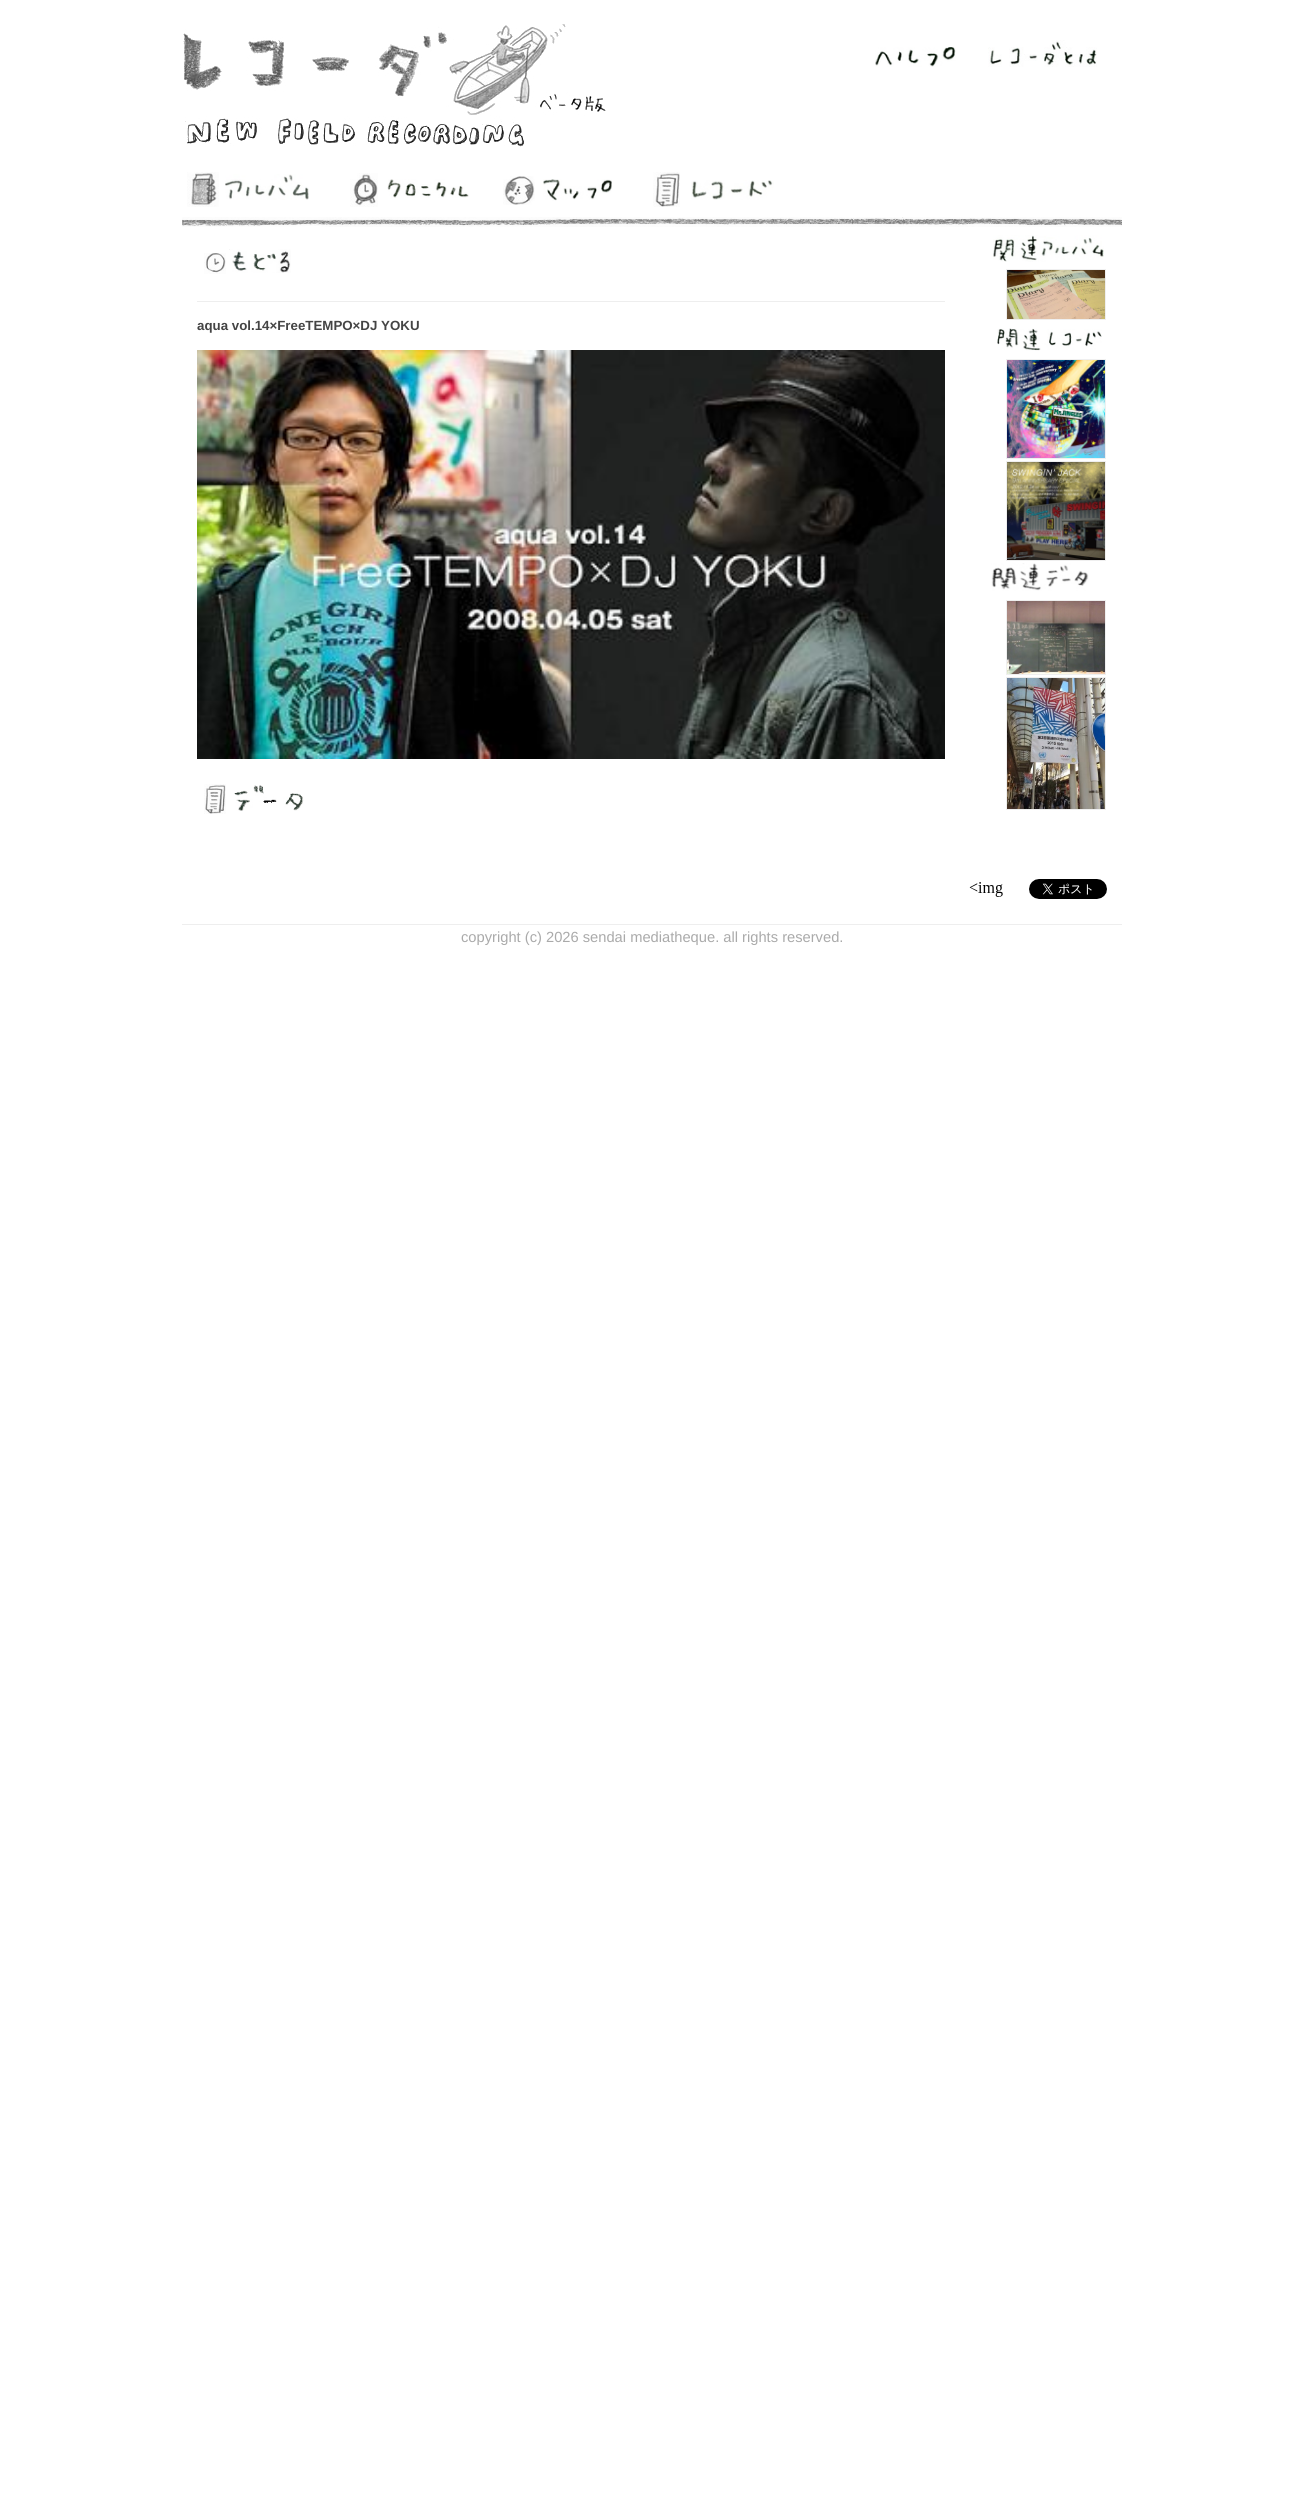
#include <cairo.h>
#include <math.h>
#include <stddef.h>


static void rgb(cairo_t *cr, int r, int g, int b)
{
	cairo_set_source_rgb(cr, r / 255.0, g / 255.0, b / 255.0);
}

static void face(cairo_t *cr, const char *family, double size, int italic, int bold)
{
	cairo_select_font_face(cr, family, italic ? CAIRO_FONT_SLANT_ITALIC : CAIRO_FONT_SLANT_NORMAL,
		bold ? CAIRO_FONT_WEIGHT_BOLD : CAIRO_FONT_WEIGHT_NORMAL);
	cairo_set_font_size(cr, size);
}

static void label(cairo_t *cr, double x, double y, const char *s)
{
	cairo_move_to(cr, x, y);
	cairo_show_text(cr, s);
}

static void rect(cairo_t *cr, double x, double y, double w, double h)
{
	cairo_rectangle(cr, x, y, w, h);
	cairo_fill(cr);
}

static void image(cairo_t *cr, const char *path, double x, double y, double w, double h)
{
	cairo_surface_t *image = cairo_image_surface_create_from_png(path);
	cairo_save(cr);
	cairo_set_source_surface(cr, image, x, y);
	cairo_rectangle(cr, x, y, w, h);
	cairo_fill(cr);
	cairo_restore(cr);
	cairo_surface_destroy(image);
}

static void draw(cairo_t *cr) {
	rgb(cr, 255, 255, 255);
	cairo_paint(cr);
	image(cr, "image0.png", 183, 24, 423, 123);
	image(cr, "image1.png", 875, 47, 81, 20);
	image(cr, "image2.png", 988, 40, 109, 27);
	image(cr, "image3.png", 187, 172, 32, 35);
	image(cr, "image4.png", 225, 174, 84, 26);
	image(cr, "image5.png", 350, 173, 28, 34);
	image(cr, "image6.png", 387, 179, 82, 19);
	image(cr, "image7.png", 503, 176, 32, 29);
	image(cr, "image8.png", 543, 179, 69, 22);
	image(cr, "image9.png", 653, 172, 27, 35);
	image(cr, "image10.png", 691, 180, 83, 20);
	image(cr, "image11.png", 182, 217, 940, 10);
	image(cr, "image12.png", 204, 253, 22, 21);
	image(cr, "image13.png", 229, 249, 62, 24);
	rgb(cr, 238, 238, 238);
	rect(cr, 197, 301, 748, 1);
	face(cr, "Liberation Sans", 13.3, 0, 1);
	rgb(cr, 68, 68, 68);
	label(cr, 197, 330, "aqua vol.14×FreeTEMPO×DJ YOKU");
	image(cr, "image14.png", 197, 350, 748, 409);
	image(cr, "image15.png", 204, 784, 22, 30);
	image(cr, "image16.png", 234, 785, 70, 26);
	image(cr, "image17.png", 993, 235, 111, 27);
	cairo_rectangle(cr, 1006.5, 269.5, 99, 50);
	rgb(cr, 239, 239, 239);
	cairo_set_line_width(cr, 1);
	cairo_stroke(cr);
	image(cr, "image18.png", 1007, 270, 98, 49);
	image(cr, "image19.png", 997, 328, 105, 23);
	cairo_rectangle(cr, 1006.5, 359.5, 99, 99);
	cairo_stroke(cr);
	image(cr, "image20.png", 1007, 360, 98, 98);
	cairo_rectangle(cr, 1006.5, 461.5, 99, 99);
	cairo_stroke(cr);
	image(cr, "image21.png", 1007, 462, 98, 98);
	image(cr, "image22.png", 991, 563, 98, 28);
	cairo_rectangle(cr, 1006.5, 600.5, 99, 74);
	cairo_stroke(cr);
	image(cr, "image23.png", 1007, 601, 98, 73);
	cairo_rectangle(cr, 1006.5, 677.5, 99, 132);
	cairo_stroke(cr);
	image(cr, "image24.png", 1007, 678, 98, 131);
	image(cr, "image25.png", 969, 882, 34, 15);
	image(cr, "image26.png", 1029, 879, 78, 20);
	rgb(cr, 238, 238, 238);
	rect(cr, 182, 924, 940, 1);
	face(cr, "Liberation Sans", 14.7, 0, 0);
	rgb(cr, 170, 170, 170);
	label(cr, 461, 942, "copyright (c) 2026 sendai mediatheque. all rights reserved.");
}

int main(void) {
	cairo_surface_t *surface = cairo_image_surface_create(CAIRO_FORMAT_RGB24, 1304, 2494);
	cairo_t *cr = cairo_create(surface);
	cairo_font_options_t *options = cairo_font_options_create();
	cairo_font_options_set_hint_metrics(options, CAIRO_HINT_METRICS_OFF);
	cairo_font_options_set_hint_style(options, CAIRO_HINT_STYLE_NONE);
	cairo_set_font_options(cr, options);
	cairo_set_miter_limit(cr, 4);
	draw(cr);
	cairo_surface_write_to_png(surface, "render.png");
	cairo_font_options_destroy(options);
	cairo_destroy(cr);
	cairo_surface_destroy(surface);
	return 0;
}
